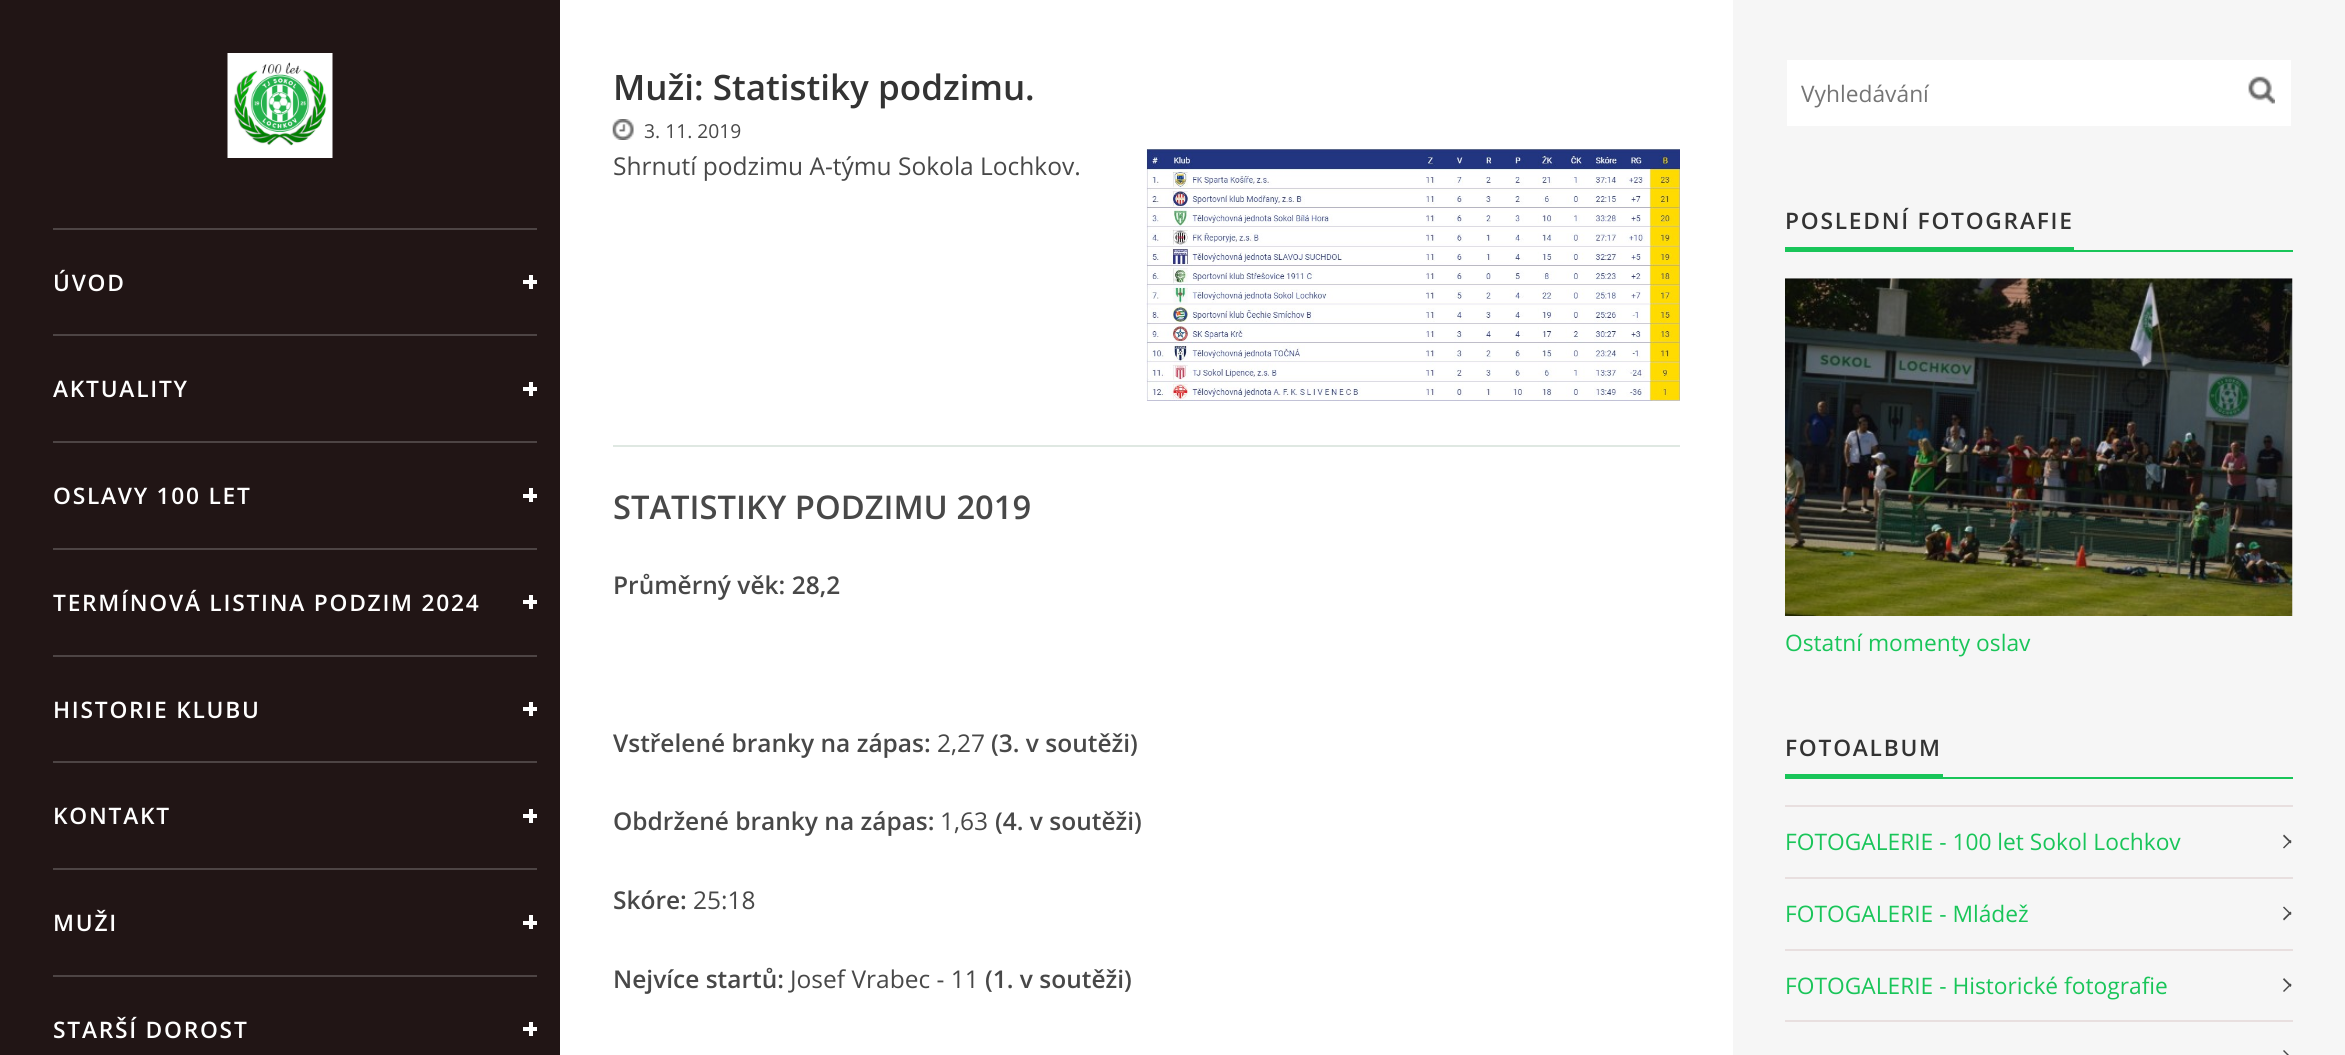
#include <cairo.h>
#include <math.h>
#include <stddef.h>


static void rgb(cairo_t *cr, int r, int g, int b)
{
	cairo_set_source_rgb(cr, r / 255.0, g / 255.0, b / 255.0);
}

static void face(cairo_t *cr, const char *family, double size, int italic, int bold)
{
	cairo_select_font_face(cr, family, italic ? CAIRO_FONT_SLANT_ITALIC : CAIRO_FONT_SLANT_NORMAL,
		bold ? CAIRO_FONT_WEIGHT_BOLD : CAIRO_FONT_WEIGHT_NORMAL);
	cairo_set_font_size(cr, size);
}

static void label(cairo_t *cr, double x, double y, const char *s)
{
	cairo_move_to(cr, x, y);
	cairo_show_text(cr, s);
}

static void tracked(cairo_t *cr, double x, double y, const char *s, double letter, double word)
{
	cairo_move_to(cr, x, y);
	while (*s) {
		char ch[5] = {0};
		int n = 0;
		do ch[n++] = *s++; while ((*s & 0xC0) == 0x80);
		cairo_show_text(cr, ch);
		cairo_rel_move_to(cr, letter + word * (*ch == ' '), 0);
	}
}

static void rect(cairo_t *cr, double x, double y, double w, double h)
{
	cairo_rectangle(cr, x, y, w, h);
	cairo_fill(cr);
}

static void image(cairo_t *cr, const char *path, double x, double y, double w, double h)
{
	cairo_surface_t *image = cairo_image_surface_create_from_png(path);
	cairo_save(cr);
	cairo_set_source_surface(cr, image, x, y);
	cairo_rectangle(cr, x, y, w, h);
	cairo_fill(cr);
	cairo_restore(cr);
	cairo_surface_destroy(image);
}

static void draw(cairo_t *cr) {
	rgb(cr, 255, 255, 255);
	cairo_paint(cr);
	rgb(cr, 33, 21, 21);
	rect(cr, 0, 0, 560, 1055);
	image(cr, "image0.png", 227, 53, 106, 105);
	rgb(cr, 77, 68, 68);
	rect(cr, 53, 228, 484, 2);
	face(cr, "Open Sans SemiBold", 22.75, 0, 0);
	rgb(cr, 255, 255, 255);
	tracked(cr, 53, 291, "ÚVOD", 1.75, 0);
	rect(cr, 523, 280, 14, 4);
	rect(cr, 529, 275, 4, 14);
	rgb(cr, 77, 68, 68);
	rect(cr, 53, 334, 484, 2);
	rgb(cr, 255, 255, 255);
	tracked(cr, 53, 397, "AKTUALITY", 1.75, 0);
	rect(cr, 523, 387, 14, 4);
	rect(cr, 529, 382, 4, 14);
	rgb(cr, 77, 68, 68);
	rect(cr, 53, 441, 484, 2);
	rgb(cr, 255, 255, 255);
	tracked(cr, 53, 504, "OSLAVY 100 LET", 1.75, 0);
	rect(cr, 523, 494, 14, 4);
	rect(cr, 529, 488, 4, 14);
	rgb(cr, 77, 68, 68);
	rect(cr, 53, 548, 484, 2);
	rgb(cr, 255, 255, 255);
	tracked(cr, 53, 611, "TERMÍNOVÁ LISTINA PODZIM 2024", 1.75, 0);
	rect(cr, 523, 600, 14, 4);
	rect(cr, 529, 595, 4, 14);
	rgb(cr, 77, 68, 68);
	rect(cr, 53, 655, 484, 2);
	rgb(cr, 255, 255, 255);
	tracked(cr, 53, 718, "HISTORIE KLUBU", 1.75, 0);
	rect(cr, 523, 707, 14, 4);
	rect(cr, 529, 702, 4, 14);
	rgb(cr, 77, 68, 68);
	rect(cr, 53, 761, 484, 2);
	rgb(cr, 255, 255, 255);
	tracked(cr, 53, 824, "KONTAKT", 1.75, 0);
	rect(cr, 523, 814, 14, 4);
	rect(cr, 529, 809, 4, 14);
	rgb(cr, 77, 68, 68);
	rect(cr, 53, 868, 484, 2);
	rgb(cr, 255, 255, 255);
	tracked(cr, 53, 931, "MUŽI", 1.75, 0);
	rect(cr, 523, 921, 14, 4);
	rect(cr, 529, 915, 4, 14);
	rgb(cr, 77, 68, 68);
	rect(cr, 53, 975, 484, 2);
	rgb(cr, 255, 255, 255);
	tracked(cr, 53, 1038, "STARŠÍ DOROST", 1.75, 0);
	rect(cr, 523, 1027, 14, 4);
	rect(cr, 529, 1022, 4, 14);
	face(cr, "Open Sans SemiBold", 35, 0, 0);
	rgb(cr, 51, 51, 51);
	label(cr, 613, 100, "Muži: Statistiky podzimu.");
	image(cr, "image1.png", 612, 119, 22, 21);
	face(cr, "Open Sans", 19.25, 0, 0);
	rgb(cr, 72, 72, 72);
	label(cr, 644, 138, "3. 11. 2019");
	rgb(cr, 223, 232, 226);
	rect(cr, 613, 445, 1067, 2);
	face(cr, "Open Sans", 24.5, 0, 0);
	rgb(cr, 72, 72, 72);
	label(cr, 613, 175, "Shrnutí podzimu A-týmu Sokola Lochkov.");
	image(cr, "image2.png", 1146, 149, 534, 252);
	face(cr, "Open Sans SemiBold", 32.7, 0, 0);
	label(cr, 613, 519, "STATISTIKY PODZIMU 2019");
	face(cr, "Open Sans SemiBold", 24.5, 0, 0);
	label(cr, 613, 594, "Průměrný věk: 28,2");
	label(cr, 613, 752, "Vstřelené branky na zápas:");
	face(cr, "Open Sans", 24.5, 0, 0);
	label(cr, 937, 752, "2,27");
	face(cr, "Open Sans SemiBold", 24.5, 0, 0);
	label(cr, 991, 752, "(3. v soutěži)");
	label(cr, 613, 830, "Obdržené branky na zápas:");
	face(cr, "Open Sans", 24.5, 0, 0);
	label(cr, 940, 830, "1,63");
	face(cr, "Open Sans SemiBold", 24.5, 0, 0);
	label(cr, 995, 830, "(4. v soutěži)");
	label(cr, 613, 909, "Skóre:");
	face(cr, "Open Sans", 24.5, 0, 0);
	label(cr, 693, 909, "25:18");
	face(cr, "Open Sans SemiBold", 24.5, 0, 0);
	label(cr, 613, 988, "Nejvíce startů:");
	face(cr, "Open Sans", 24.5, 0, 0);
	label(cr, 790, 988, "Josef Vrabec - 11");
	face(cr, "Open Sans SemiBold", 24.5, 0, 0);
	label(cr, 985, 988, "(1. v soutěži)");
	rgb(cr, 246, 246, 246);
	rect(cr, 1733, 0, 612, 1055);
	rgb(cr, 255, 255, 255);
	rect(cr, 1787, 60, 504, 66);
	face(cr, "Open Sans", 22.75, 0, 0);
	rgb(cr, 117, 117, 117);
	label(cr, 1801, 102, "Vyhledávání");
	image(cr, "image3.png", 2248, 76, 27, 28);
	face(cr, "Open Sans SemiBold", 22.75, 0, 0);
	rgb(cr, 51, 51, 51);
	tracked(cr, 1785, 229, "POSLEDNÍ FOTOGRAFIE", 1.75, 0);
	rgb(cr, 25, 197, 89);
	rect(cr, 1785, 247, 289, 3);
	rect(cr, 1785, 250, 508, 2);
	image(cr, "image4.png", 1785, 278, 508, 338);
	face(cr, "Open Sans", 22.75, 0, 0);
	label(cr, 1785, 651, "Ostatní momenty oslav");
	face(cr, "Open Sans SemiBold", 22.75, 0, 0);
	rgb(cr, 51, 51, 51);
	tracked(cr, 1785, 756, "FOTOALBUM", 1.75, 0);
	rgb(cr, 25, 197, 89);
	rect(cr, 1785, 774, 158, 3);
	rect(cr, 1785, 777, 508, 2);
	rgb(cr, 232, 223, 223);
	rect(cr, 1785, 805, 508, 2);
	rect(cr, 1785, 877, 508, 2);
	face(cr, "Open Sans", 22.75, 0, 0);
	rgb(cr, 25, 197, 89);
	label(cr, 1785, 850, "FOTOGALERIE - 100 let Sokol Lochkov");
	rgb(cr, 72, 72, 72);
	cairo_new_path(cr);
	cairo_move_to(cr, 2284, 834.5);
	cairo_line_to(cr, 2291.5, 842);
	cairo_line_to(cr, 2290.5, 843.5);
	cairo_line_to(cr, 2283, 836);
	cairo_close_path(cr);
	cairo_fill(cr);
	cairo_new_path(cr);
	cairo_move_to(cr, 2283, 847.5);
	cairo_line_to(cr, 2290.5, 840);
	cairo_line_to(cr, 2291.5, 841);
	cairo_line_to(cr, 2284, 848.5);
	cairo_close_path(cr);
	cairo_fill(cr);
	rgb(cr, 232, 223, 223);
	rect(cr, 1785, 949, 508, 2);
	rgb(cr, 25, 197, 89);
	label(cr, 1785, 922, "FOTOGALERIE - Mládež");
	rgb(cr, 72, 72, 72);
	cairo_new_path(cr);
	cairo_move_to(cr, 2284, 906.5);
	cairo_line_to(cr, 2291.5, 914);
	cairo_line_to(cr, 2290.5, 915);
	cairo_line_to(cr, 2283, 907.5);
	cairo_close_path(cr);
	cairo_fill(cr);
	cairo_new_path(cr);
	cairo_move_to(cr, 2283, 919);
	cairo_line_to(cr, 2290.5, 911.5);
	cairo_line_to(cr, 2291.5, 913);
	cairo_line_to(cr, 2284, 920.5);
	cairo_close_path(cr);
	cairo_fill(cr);
	rgb(cr, 232, 223, 223);
	rect(cr, 1785, 1020, 508, 2);
	rgb(cr, 25, 197, 89);
	label(cr, 1785, 994, "FOTOGALERIE - Historické fotografie");
	rgb(cr, 72, 72, 72);
	cairo_new_path(cr);
	cairo_move_to(cr, 2284, 978);
	cairo_line_to(cr, 2291.5, 985.5);
	cairo_line_to(cr, 2290.5, 987);
	cairo_line_to(cr, 2283, 979.5);
	cairo_close_path(cr);
	cairo_fill(cr);
	cairo_new_path(cr);
	cairo_move_to(cr, 2283, 991);
	cairo_line_to(cr, 2290.5, 983.5);
	cairo_line_to(cr, 2291.5, 984.5);
	cairo_line_to(cr, 2284, 992);
	cairo_close_path(cr);
	cairo_fill(cr);
	cairo_new_path(cr);
	cairo_move_to(cr, 2284, 1050);
	cairo_line_to(cr, 2291.5, 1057.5);
	cairo_line_to(cr, 2290.5, 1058.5);
	cairo_line_to(cr, 2283, 1051);
	cairo_close_path(cr);
	cairo_fill(cr);
}

int main(void) {
	cairo_surface_t *surface = cairo_image_surface_create(CAIRO_FORMAT_RGB24, 2345, 1055);
	cairo_t *cr = cairo_create(surface);
	cairo_font_options_t *options = cairo_font_options_create();
	cairo_font_options_set_hint_metrics(options, CAIRO_HINT_METRICS_OFF);
	cairo_font_options_set_hint_style(options, CAIRO_HINT_STYLE_NONE);
	cairo_set_font_options(cr, options);
	cairo_set_miter_limit(cr, 4);
	draw(cr);
	cairo_surface_write_to_png(surface, "render.png");
	cairo_font_options_destroy(options);
	cairo_destroy(cr);
	cairo_surface_destroy(surface);
	return 0;
}
